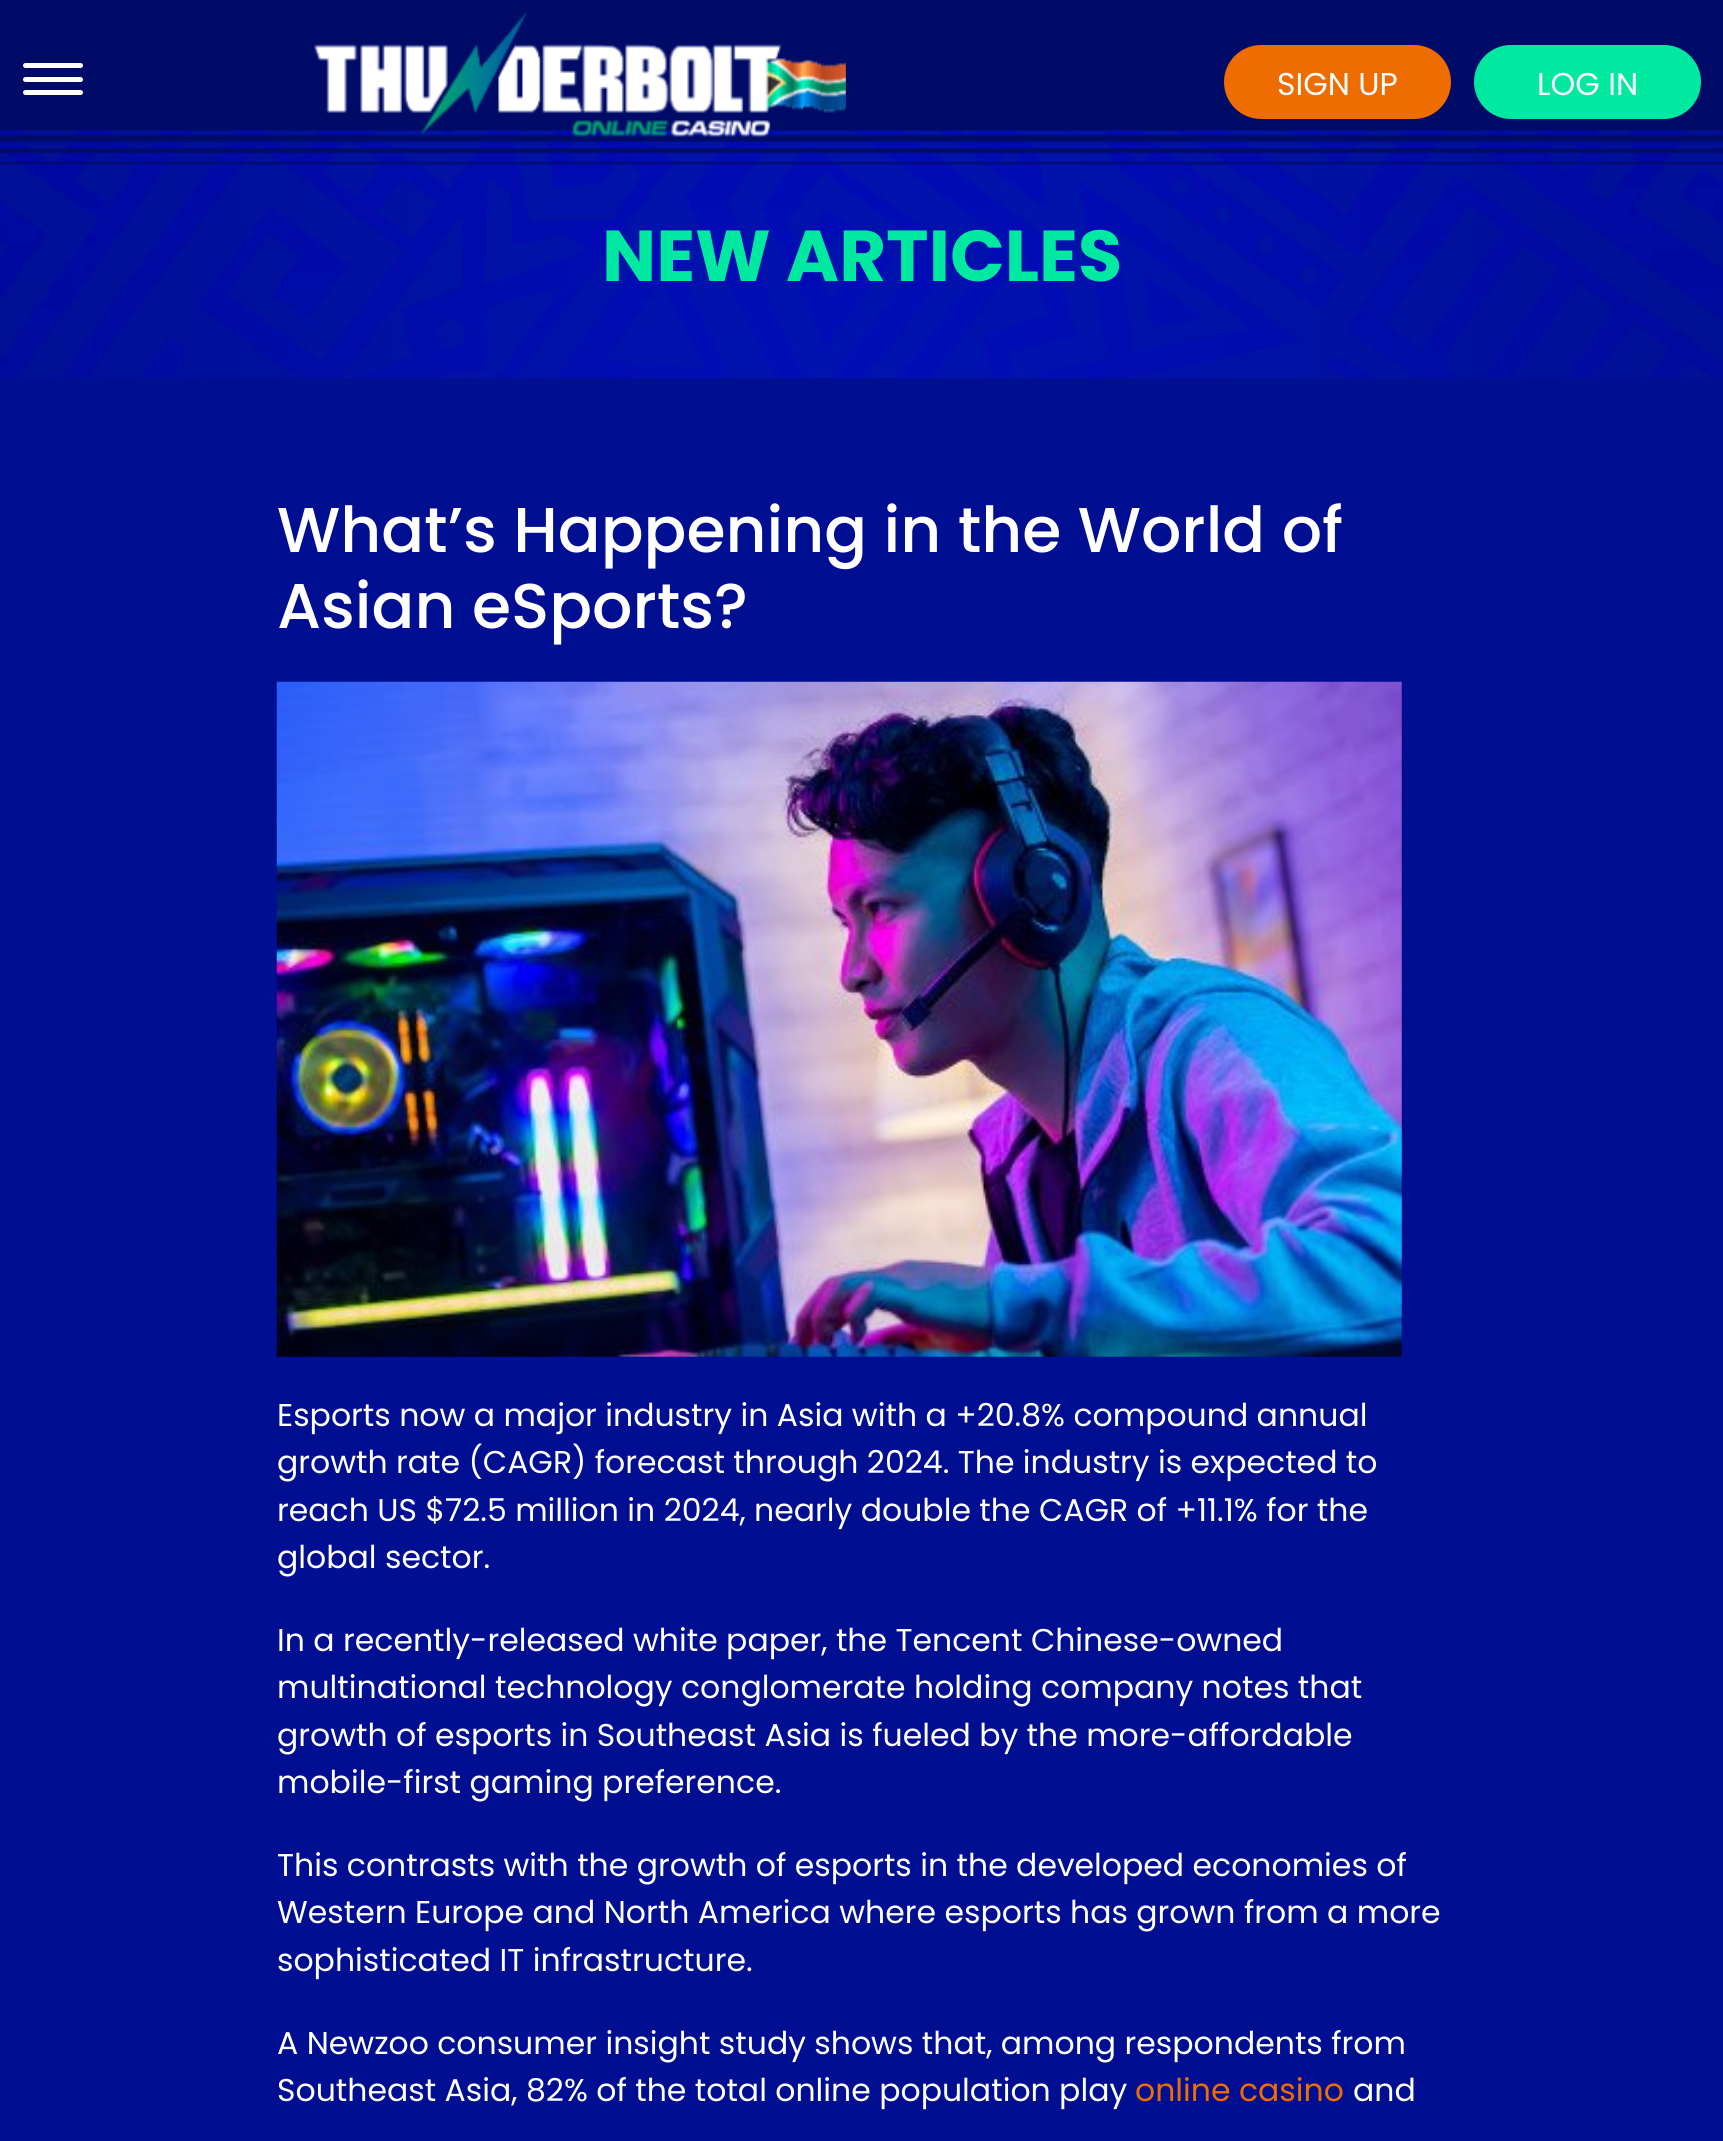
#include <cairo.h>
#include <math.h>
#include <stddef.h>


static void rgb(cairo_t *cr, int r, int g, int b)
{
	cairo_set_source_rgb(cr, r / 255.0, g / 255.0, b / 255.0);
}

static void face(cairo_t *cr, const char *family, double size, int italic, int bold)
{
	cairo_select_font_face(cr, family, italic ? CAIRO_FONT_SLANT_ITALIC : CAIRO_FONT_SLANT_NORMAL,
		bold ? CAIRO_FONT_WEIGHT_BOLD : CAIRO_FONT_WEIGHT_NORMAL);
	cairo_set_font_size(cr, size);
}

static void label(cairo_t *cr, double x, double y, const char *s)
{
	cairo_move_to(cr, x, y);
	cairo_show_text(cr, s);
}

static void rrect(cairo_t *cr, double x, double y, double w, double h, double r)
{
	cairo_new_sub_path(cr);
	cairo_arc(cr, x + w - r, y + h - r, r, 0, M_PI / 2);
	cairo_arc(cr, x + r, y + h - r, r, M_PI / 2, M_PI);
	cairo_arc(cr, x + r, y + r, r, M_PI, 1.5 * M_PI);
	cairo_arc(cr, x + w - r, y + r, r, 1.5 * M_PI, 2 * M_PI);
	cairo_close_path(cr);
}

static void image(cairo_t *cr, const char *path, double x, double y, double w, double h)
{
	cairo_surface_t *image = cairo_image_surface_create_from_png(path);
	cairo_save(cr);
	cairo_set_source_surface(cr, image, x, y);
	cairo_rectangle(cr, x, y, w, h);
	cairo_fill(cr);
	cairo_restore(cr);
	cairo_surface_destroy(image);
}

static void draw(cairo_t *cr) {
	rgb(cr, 0, 14, 145);
	cairo_paint(cr);
	image(cr, "image2.png", 0, 129, 1723, 249);
	image(cr, "image0.png", 0, 0, 1723, 165);
	rgb(cr, 255, 255, 255);
	rrect(cr, 23, 63, 60, 5, 2.5);
	cairo_fill(cr);
	rrect(cr, 23, 77, 60, 5, 2.5);
	cairo_fill(cr);
	rrect(cr, 23, 90, 60, 5, 2.5);
	cairo_fill(cr);
	image(cr, "image1.png", 314, 11, 532, 126);
	rgb(cr, 239, 108, 0);
	rrect(cr, 1224, 45, 227, 74, 37);
	cairo_fill(cr);
	face(cr, "Poppins", 31.5, 0, 0);
	rgb(cr, 255, 255, 255);
	label(cr, 1277, 95, "SIGN UP");
	rgb(cr, 0, 233, 161);
	rrect(cr, 1474, 45, 227, 74, 37);
	cairo_fill(cr);
	rgb(cr, 255, 255, 255);
	label(cr, 1537, 95, "LOG IN");
	face(cr, "Poppins", 72, 0, 1);
	rgb(cr, 0, 233, 161);
	label(cr, 602, 281, "NEW ARTICLES");
	face(cr, "Poppins Medium", 63.25, 0, 0);
	rgb(cr, 255, 255, 255);
	label(cr, 277, 552, "What’s Happening in the World of");
	label(cr, 277, 628, "Asian eSports?");
	image(cr, "image3.png", 276, 681, 1126, 676);
	face(cr, "Poppins", 31.5, 0, 0);
	label(cr, 277, 1426, "Esports now a major industry in Asia with a +20.8% compound annual");
	label(cr, 277, 1473, "growth rate (CAGR) forecast through 2024. The industry is expected to");
	label(cr, 277, 1521, "reach US $72.5 million in 2024, nearly double the CAGR of +11.1% for the");
	label(cr, 277, 1568, "global sector.");
	label(cr, 277, 1651, "In a recently-released white paper, the Tencent Chinese-owned");
	label(cr, 277, 1698, "multinational technology conglomerate holding company notes that");
	label(cr, 277, 1746, "growth of esports in Southeast Asia is fueled by the more-affordable");
	label(cr, 277, 1793, "mobile-first gaming preference.");
	label(cr, 277, 1876, "This contrasts with the growth of esports in the developed economies of");
	label(cr, 277, 1923, "Western Europe and North America where esports has grown from a more");
	label(cr, 277, 1971, "sophisticated IT infrastructure.");
	label(cr, 277, 2054, "A Newzoo consumer insight study shows that, among respondents from");
	label(cr, 277, 2101, "Southeast Asia, 82% of the total online population play");
	rgb(cr, 239, 108, 0);
	label(cr, 1135, 2101, "online casino");
	rgb(cr, 255, 255, 255);
	label(cr, 1353, 2101, "and");
}

int main(void) {
	cairo_surface_t *surface = cairo_image_surface_create(CAIRO_FORMAT_RGB24, 1723, 2141);
	cairo_t *cr = cairo_create(surface);
	cairo_font_options_t *options = cairo_font_options_create();
	cairo_font_options_set_hint_metrics(options, CAIRO_HINT_METRICS_OFF);
	cairo_font_options_set_hint_style(options, CAIRO_HINT_STYLE_NONE);
	cairo_set_font_options(cr, options);
	cairo_set_miter_limit(cr, 4);
	draw(cr);
	cairo_surface_write_to_png(surface, "render.png");
	cairo_font_options_destroy(options);
	cairo_destroy(cr);
	cairo_surface_destroy(surface);
	return 0;
}
